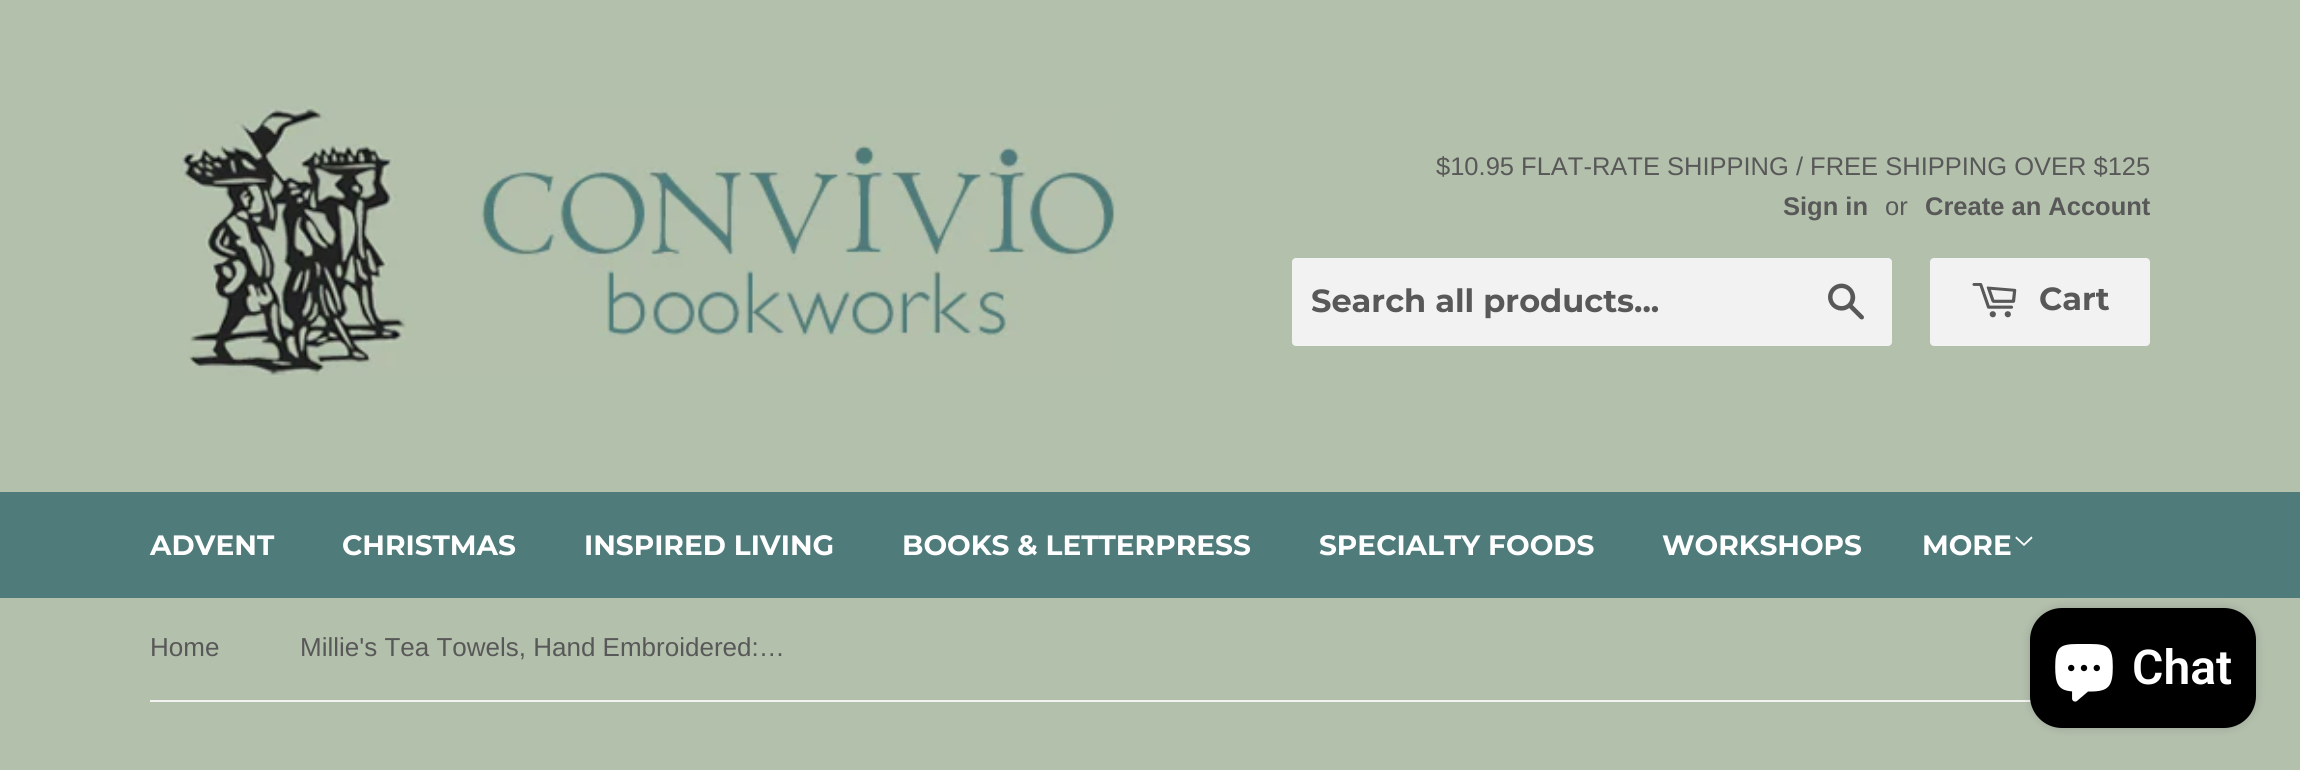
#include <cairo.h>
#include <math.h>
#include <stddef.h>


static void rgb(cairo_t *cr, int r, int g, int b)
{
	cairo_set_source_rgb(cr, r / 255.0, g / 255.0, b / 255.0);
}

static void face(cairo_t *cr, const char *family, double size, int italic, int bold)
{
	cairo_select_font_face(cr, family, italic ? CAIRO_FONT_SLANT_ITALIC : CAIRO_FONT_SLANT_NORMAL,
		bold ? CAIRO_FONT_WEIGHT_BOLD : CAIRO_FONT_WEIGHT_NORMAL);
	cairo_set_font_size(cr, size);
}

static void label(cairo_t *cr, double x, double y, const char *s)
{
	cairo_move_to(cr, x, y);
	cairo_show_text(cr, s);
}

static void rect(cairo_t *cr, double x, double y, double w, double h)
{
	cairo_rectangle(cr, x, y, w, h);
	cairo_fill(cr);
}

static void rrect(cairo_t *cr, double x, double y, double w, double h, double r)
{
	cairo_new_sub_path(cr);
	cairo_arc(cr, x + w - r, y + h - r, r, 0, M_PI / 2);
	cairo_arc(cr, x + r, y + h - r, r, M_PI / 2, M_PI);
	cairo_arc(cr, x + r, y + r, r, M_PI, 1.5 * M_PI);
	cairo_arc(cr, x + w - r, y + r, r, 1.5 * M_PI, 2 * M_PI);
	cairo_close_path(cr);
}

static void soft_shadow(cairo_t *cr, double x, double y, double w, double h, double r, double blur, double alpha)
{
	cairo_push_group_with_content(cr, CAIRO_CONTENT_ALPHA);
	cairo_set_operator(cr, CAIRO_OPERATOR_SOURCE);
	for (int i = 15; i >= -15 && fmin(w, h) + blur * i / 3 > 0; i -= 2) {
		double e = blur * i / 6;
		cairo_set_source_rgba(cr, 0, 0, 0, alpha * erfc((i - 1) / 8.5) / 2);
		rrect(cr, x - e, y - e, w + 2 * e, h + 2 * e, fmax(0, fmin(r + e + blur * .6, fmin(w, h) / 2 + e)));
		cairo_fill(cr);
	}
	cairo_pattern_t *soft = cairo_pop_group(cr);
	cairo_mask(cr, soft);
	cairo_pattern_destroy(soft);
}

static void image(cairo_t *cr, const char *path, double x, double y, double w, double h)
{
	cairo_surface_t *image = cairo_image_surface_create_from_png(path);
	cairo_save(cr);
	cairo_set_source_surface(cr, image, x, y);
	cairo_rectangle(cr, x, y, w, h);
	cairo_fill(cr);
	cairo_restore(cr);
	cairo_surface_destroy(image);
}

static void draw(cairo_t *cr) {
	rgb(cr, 179, 192, 172);
	cairo_paint(cr);
	image(cr, "image0.png", 180, 106, 936, 271);
	face(cr, "Liberation Sans", 25.5, 0, 0);
	rgb(cr, 88, 88, 88);
	label(cr, 1436, 175, "$10.95 FLAT-RATE SHIPPING / FREE SHIPPING OVER $125");
	face(cr, "Liberation Sans", 25.5, 0, 1);
	label(cr, 1783, 215, "Sign in");
	face(cr, "Liberation Sans", 25.5, 0, 0);
	label(cr, 1885, 215, "or");
	face(cr, "Liberation Sans", 25.5, 0, 1);
	label(cr, 1925, 215, "Create an Account");
	rgb(cr, 242, 242, 242);
	rrect(cr, 1292, 258, 600, 88, 4);
	cairo_fill(cr);
	face(cr, "Montserrat Thin", 32, 0, 0);
	rgb(cr, 88, 88, 88);
	label(cr, 1311, 312, "Search all products...");
	image(cr, "image1.png", 1828, 283, 36, 37);
	rgb(cr, 242, 242, 242);
	rrect(cr, 1930, 258, 220, 88, 4);
	cairo_fill(cr);
	image(cr, "image2.png", 1972, 283, 45, 35);
	rgb(cr, 88, 88, 88);
	label(cr, 2039, 310, "Cart");
	rgb(cr, 79, 123, 122);
	rect(cr, 0, 492, 2300, 106);
	face(cr, "Montserrat Thin", 28, 0, 0);
	rgb(cr, 255, 255, 255);
	label(cr, 150, 555, "ADVENT");
	label(cr, 342, 555, "CHRISTMAS");
	label(cr, 584, 555, "INSPIRED LIVING");
	label(cr, 902, 555, "BOOKS & LETTERPRESS");
	label(cr, 1319, 555, "SPECIALTY FOODS");
	label(cr, 1662, 555, "WORKSHOPS");
	label(cr, 1922, 555, "MORE");
	image(cr, "image3.png", 2015, 536, 18, 10);
	rgb(cr, 242, 242, 242);
	rect(cr, 150, 700, 1881, 2);
	face(cr, "Liberation Sans", 26, 0, 0);
	rgb(cr, 88, 88, 88);
	label(cr, 150, 656, "Home");
	label(cr, 300, 656, "Millie's Tea Towels, Hand Embroidered:…");
	rgb(cr, 0, 0, 0);
	soft_shadow(cr, 2030, 608, 226, 120, 32, 5, 0.15);
	rgb(cr, 0, 0, 0);
	rrect(cr, 2030, 608, 226, 120, 32);
	cairo_fill(cr);
	image(cr, "image4.png", 2055, 644, 58, 58);
	face(cr, "Roboto SemiBold", 48, 0, 0);
	rgb(cr, 255, 255, 255);
	label(cr, 2132, 684, "Chat");
}

int main(void) {
	cairo_surface_t *surface = cairo_image_surface_create(CAIRO_FORMAT_RGB24, 2300, 770);
	cairo_t *cr = cairo_create(surface);
	cairo_font_options_t *options = cairo_font_options_create();
	cairo_font_options_set_hint_metrics(options, CAIRO_HINT_METRICS_OFF);
	cairo_font_options_set_hint_style(options, CAIRO_HINT_STYLE_NONE);
	cairo_set_font_options(cr, options);
	cairo_set_miter_limit(cr, 4);
	draw(cr);
	cairo_surface_write_to_png(surface, "render.png");
	cairo_font_options_destroy(options);
	cairo_destroy(cr);
	cairo_surface_destroy(surface);
	return 0;
}
